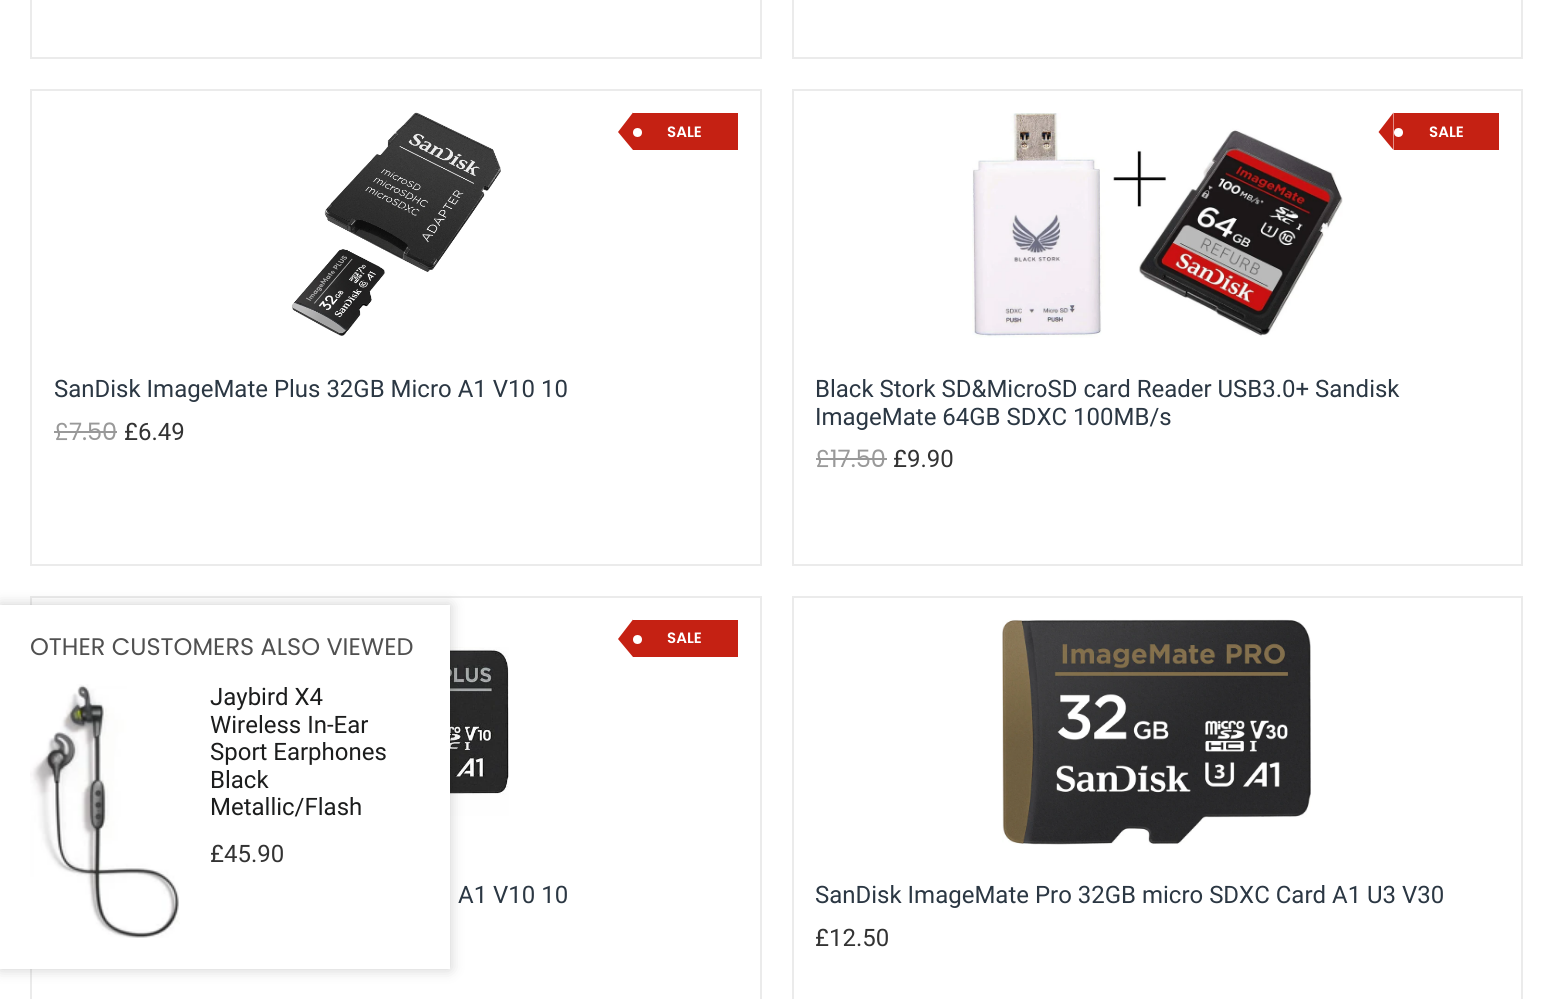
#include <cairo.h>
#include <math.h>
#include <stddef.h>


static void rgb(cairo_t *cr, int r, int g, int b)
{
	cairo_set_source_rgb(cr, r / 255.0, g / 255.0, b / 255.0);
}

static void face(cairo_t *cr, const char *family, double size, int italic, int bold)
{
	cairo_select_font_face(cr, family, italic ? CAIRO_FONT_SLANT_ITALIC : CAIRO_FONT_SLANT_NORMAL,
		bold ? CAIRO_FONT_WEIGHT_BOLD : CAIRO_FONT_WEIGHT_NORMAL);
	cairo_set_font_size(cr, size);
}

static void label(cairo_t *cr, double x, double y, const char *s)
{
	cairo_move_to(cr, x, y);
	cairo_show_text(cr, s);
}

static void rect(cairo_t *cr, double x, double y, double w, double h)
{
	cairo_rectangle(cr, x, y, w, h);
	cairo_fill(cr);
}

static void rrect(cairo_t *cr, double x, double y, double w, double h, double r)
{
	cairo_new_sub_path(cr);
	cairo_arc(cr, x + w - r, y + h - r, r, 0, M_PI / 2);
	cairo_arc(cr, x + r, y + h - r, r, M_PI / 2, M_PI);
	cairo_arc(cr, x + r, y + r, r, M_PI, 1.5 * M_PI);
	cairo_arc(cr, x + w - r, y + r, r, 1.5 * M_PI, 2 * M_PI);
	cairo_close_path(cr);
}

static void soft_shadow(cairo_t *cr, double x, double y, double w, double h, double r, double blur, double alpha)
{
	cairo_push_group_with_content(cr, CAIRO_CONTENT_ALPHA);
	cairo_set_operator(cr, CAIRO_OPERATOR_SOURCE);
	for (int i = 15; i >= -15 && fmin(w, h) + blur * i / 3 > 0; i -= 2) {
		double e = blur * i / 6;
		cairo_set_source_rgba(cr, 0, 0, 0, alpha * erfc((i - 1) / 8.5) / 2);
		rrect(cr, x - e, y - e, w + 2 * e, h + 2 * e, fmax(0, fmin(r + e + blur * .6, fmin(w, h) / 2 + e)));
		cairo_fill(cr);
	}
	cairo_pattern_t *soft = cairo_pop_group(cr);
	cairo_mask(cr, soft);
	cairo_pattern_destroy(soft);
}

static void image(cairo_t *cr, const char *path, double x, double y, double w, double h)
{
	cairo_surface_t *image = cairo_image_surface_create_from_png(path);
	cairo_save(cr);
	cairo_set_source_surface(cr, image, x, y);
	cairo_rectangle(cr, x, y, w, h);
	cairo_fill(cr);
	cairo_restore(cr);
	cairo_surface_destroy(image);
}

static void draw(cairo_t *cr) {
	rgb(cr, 255, 255, 255);
	cairo_paint(cr);
	cairo_rectangle(cr, 31, -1, 730, 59);
	rgb(cr, 235, 235, 235);
	cairo_stroke(cr);
	cairo_rectangle(cr, 793, -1, 729, 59);
	cairo_stroke(cr);
	cairo_rectangle(cr, 31, 90, 730, 475);
	cairo_stroke(cr);
	image(cr, "image0.png", 291, 112, 210, 224);
	rgb(cr, 197, 33, 19);
	rect(cr, 633, 113, 105, 37);
	cairo_new_path(cr);
	cairo_move_to(cr, 633, 112.5);
	cairo_line_to(cr, 633, 150);
	cairo_line_to(cr, 618, 132);
	cairo_close_path(cr);
	cairo_fill(cr);
	rgb(cr, 255, 255, 255);
	cairo_arc(cr, 637.5, 132.5, 4.5, 0, 2 * M_PI);
	cairo_fill(cr);
	face(cr, "Poppins SemiBold", 15, 0, 0);
	label(cr, 667, 137, "SALE");
	face(cr, "Roboto", 24, 0, 0);
	rgb(cr, 43, 55, 67);
	label(cr, 54, 397, "SanDisk ImageMate Plus 32GB Micro A1 V10 10");
	face(cr, "Poppins", 24, 0, 0);
	rgb(cr, 153, 153, 153);
	label(cr, 54, 440, "£7.50");
	rect(cr, 54, 431, 63, 2);
	face(cr, "Roboto", 24, 0, 0);
	rgb(cr, 51, 51, 51);
	label(cr, 124, 440, "£6.49");
	cairo_rectangle(cr, 793, 90, 729, 475);
	rgb(cr, 235, 235, 235);
	cairo_stroke(cr);
	image(cr, "image1.png", 972, 113, 371, 225);
	rgb(cr, 197, 33, 19);
	rect(cr, 1394, 113, 105, 37);
	cairo_new_path(cr);
	cairo_move_to(cr, 1393.5, 112.5);
	cairo_line_to(cr, 1393.5, 150);
	cairo_line_to(cr, 1378.5, 132);
	cairo_close_path(cr);
	cairo_fill(cr);
	rgb(cr, 255, 255, 255);
	cairo_arc(cr, 1398.5, 132.5, 4.5, 0, 2 * M_PI);
	cairo_fill(cr);
	face(cr, "Poppins SemiBold", 15, 0, 0);
	label(cr, 1429, 137, "SALE");
	face(cr, "Roboto", 24, 0, 0);
	rgb(cr, 43, 55, 67);
	label(cr, 815, 397, "Black Stork SD&MicroSD card Reader USB3.0+ Sandisk");
	label(cr, 815, 425, "ImageMate 64GB SDXC 100MB/s");
	face(cr, "Poppins", 24, 0, 0);
	rgb(cr, 153, 153, 153);
	label(cr, 815, 467, "£17.50");
	rect(cr, 816, 458, 71, 2);
	face(cr, "Roboto", 24, 0, 0);
	rgb(cr, 51, 51, 51);
	label(cr, 893, 467, "£9.90");
	cairo_rectangle(cr, 31, 597, 730, 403);
	rgb(cr, 235, 235, 235);
	cairo_stroke(cr);
	rgb(cr, 197, 33, 19);
	rect(cr, 633, 620, 105, 37);
	cairo_new_path(cr);
	cairo_move_to(cr, 633, 619.5);
	cairo_line_to(cr, 633, 657);
	cairo_line_to(cr, 618, 639);
	cairo_close_path(cr);
	cairo_fill(cr);
	rgb(cr, 255, 255, 255);
	cairo_arc(cr, 637.5, 639.5, 4.5, 0, 2 * M_PI);
	cairo_fill(cr);
	face(cr, "Poppins SemiBold", 15, 0, 0);
	label(cr, 667, 643, "SALE");
	image(cr, "image2.png", 450, 647, 59, 169);
	face(cr, "Roboto", 24, 0, 0);
	rgb(cr, 43, 55, 67);
	label(cr, 458, 903, "A1 V10 10");
	cairo_rectangle(cr, 793, 597, 729, 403);
	rgb(cr, 235, 235, 235);
	cairo_stroke(cr);
	image(cr, "image3.png", 1002, 619, 309, 226);
	rgb(cr, 43, 55, 67);
	label(cr, 815, 903, "SanDisk ImageMate Pro 32GB micro SDXC Card A1 U3 V30");
	rgb(cr, 51, 51, 51);
	label(cr, 815, 946, "£12.50");
	rgb(cr, 0, 0, 0);
	soft_shadow(cr, 0, 605, 450, 364, 0, 7, 0.2);
	rgb(cr, 255, 255, 255);
	rect(cr, 0, 605, 450, 364);
	face(cr, "Poppins", 24, 0, 0);
	rgb(cr, 80, 80, 80);
	label(cr, 30, 655, "OTHER CUSTOMERS ALSO VIEWED");
	image(cr, "image4.png", 30, 684, 150, 254);
	face(cr, "Roboto", 24, 0, 0);
	rgb(cr, 28, 29, 29);
	label(cr, 210, 705, "Jaybird X4");
	label(cr, 210, 733, "Wireless In-Ear");
	label(cr, 210, 760, "Sport Earphones");
	label(cr, 210, 788, "Black");
	label(cr, 210, 815, "Metallic/Flash");
	rgb(cr, 51, 51, 51);
	label(cr, 210, 862, "£45.90");
}

int main(void) {
	cairo_surface_t *surface = cairo_image_surface_create(CAIRO_FORMAT_RGB24, 1552, 999);
	cairo_t *cr = cairo_create(surface);
	cairo_font_options_t *options = cairo_font_options_create();
	cairo_font_options_set_hint_metrics(options, CAIRO_HINT_METRICS_OFF);
	cairo_font_options_set_hint_style(options, CAIRO_HINT_STYLE_NONE);
	cairo_set_font_options(cr, options);
	cairo_set_miter_limit(cr, 4);
	draw(cr);
	cairo_surface_write_to_png(surface, "render.png");
	cairo_font_options_destroy(options);
	cairo_destroy(cr);
	cairo_surface_destroy(surface);
	return 0;
}
